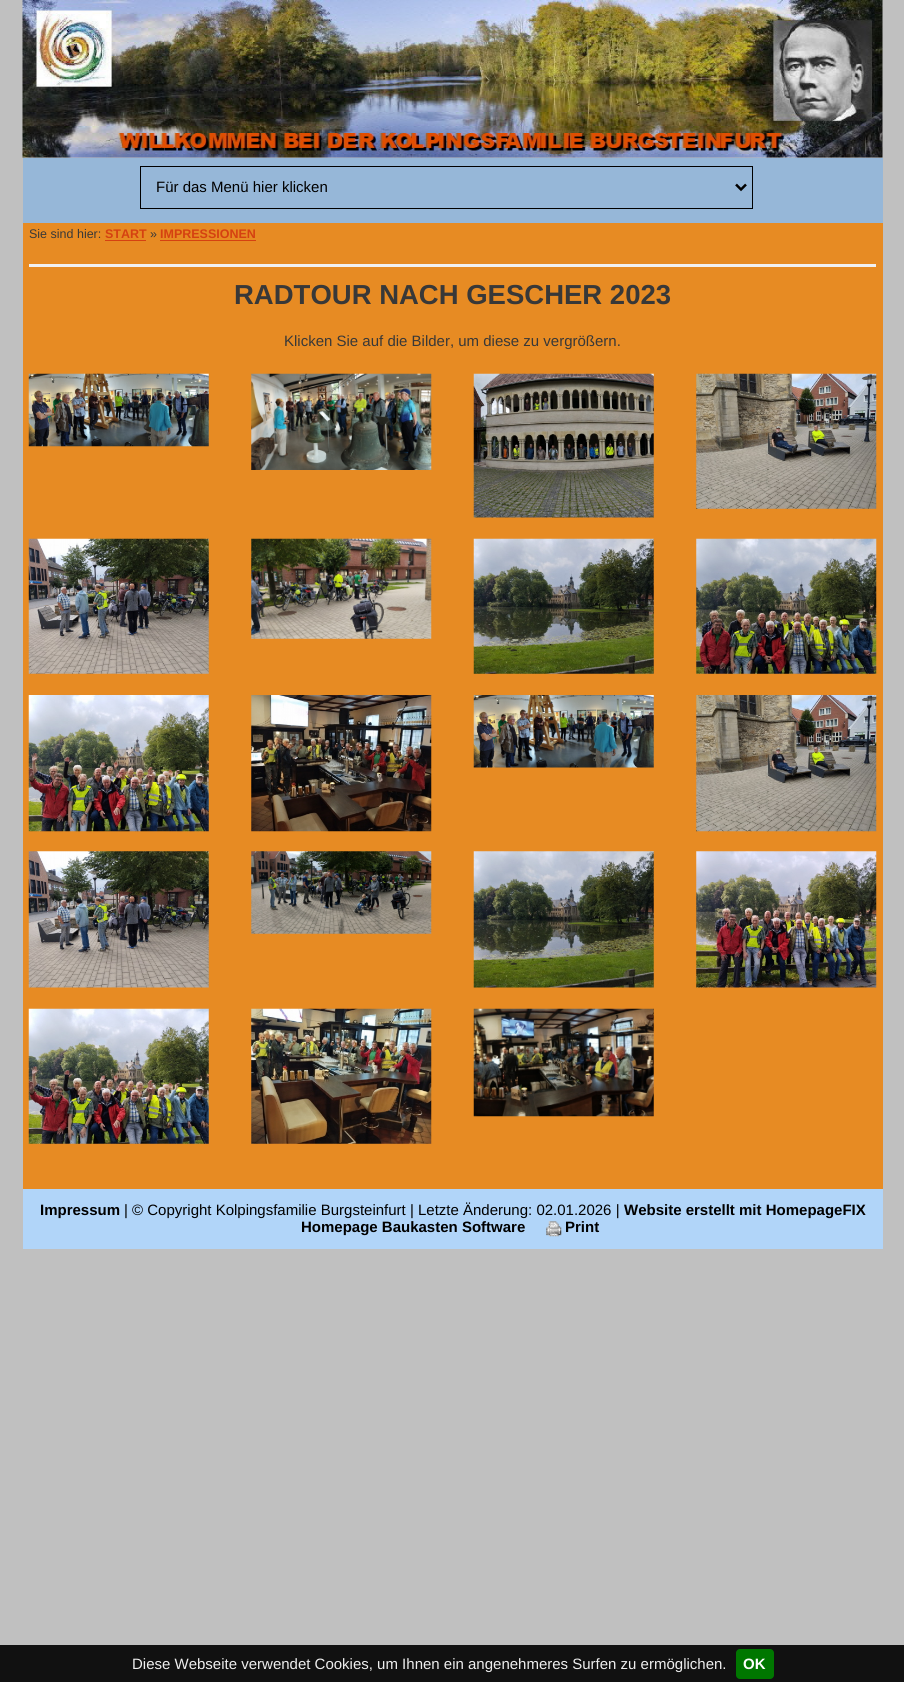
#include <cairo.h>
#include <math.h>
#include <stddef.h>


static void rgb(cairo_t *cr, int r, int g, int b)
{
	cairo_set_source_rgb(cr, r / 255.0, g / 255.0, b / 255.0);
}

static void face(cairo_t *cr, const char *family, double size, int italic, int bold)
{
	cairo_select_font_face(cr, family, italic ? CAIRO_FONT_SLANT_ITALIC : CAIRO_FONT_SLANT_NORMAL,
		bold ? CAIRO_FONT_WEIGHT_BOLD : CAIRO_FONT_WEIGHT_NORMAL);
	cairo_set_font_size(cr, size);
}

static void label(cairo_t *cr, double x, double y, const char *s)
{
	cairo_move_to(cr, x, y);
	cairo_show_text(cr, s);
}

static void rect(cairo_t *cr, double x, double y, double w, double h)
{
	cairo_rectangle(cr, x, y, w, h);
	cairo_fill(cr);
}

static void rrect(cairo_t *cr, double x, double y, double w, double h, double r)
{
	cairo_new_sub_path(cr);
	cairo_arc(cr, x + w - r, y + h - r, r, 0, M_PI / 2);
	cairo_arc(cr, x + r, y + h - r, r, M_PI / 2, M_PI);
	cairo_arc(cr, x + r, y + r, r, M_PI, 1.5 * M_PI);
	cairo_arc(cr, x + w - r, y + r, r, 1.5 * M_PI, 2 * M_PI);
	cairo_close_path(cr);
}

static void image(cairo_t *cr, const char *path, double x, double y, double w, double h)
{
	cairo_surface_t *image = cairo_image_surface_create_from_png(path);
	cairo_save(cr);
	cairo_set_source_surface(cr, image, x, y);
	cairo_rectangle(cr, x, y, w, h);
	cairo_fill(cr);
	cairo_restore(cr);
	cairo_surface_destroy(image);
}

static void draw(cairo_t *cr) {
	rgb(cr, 192, 192, 192);
	cairo_paint(cr);
	image(cr, "image0.png", 22, 0, 861, 158);
	rgb(cr, 150, 183, 216);
	rect(cr, 23, 158, 860, 65);
	cairo_rectangle(cr, 140.5, 166.5, 612, 42);
	rgb(cr, 0, 0, 0);
	cairo_set_line_width(cr, 1);
	cairo_stroke(cr);
	cairo_new_path(cr);
	cairo_move_to(cr, 736, 184.5);
	cairo_line_to(cr, 741, 189.5);
	cairo_line_to(cr, 746, 184.5);
	cairo_set_line_width(cr, 2.5);
	cairo_stroke(cr);
	face(cr, "Liberation Sans", 15, 0, 0);
	label(cr, 156, 192, "Für das Menü hier klicken");
	rgb(cr, 231, 139, 35);
	rect(cr, 23, 223, 860, 966);
	face(cr, "Liberation Sans", 12.5, 0, 0);
	rgb(cr, 56, 56, 56);
	label(cr, 29, 238, "Sie sind hier:");
	face(cr, "Liberation Sans", 12.5, 0, 1);
	rgb(cr, 213, 65, 17);
	label(cr, 105, 238, "START");
	rect(cr, 105, 240, 41, 1);
	face(cr, "Liberation Sans", 12.5, 0, 0);
	rgb(cr, 56, 56, 56);
	label(cr, 150, 238, "»");
	face(cr, "Liberation Sans", 12.5, 0, 1);
	rgb(cr, 213, 65, 17);
	label(cr, 160, 238, "IMPRESSIONEN");
	rect(cr, 160, 240, 96, 1);
	rgb(cr, 241, 241, 241);
	rect(cr, 29, 264, 847, 3);
	face(cr, "Liberation Sans", 27.5, 0, 1);
	rgb(cr, 56, 56, 56);
	label(cr, 234, 304, "RADTOUR NACH GESCHER 2023");
	face(cr, "Liberation Sans", 15, 0, 0);
	label(cr, 284, 346, "Klicken Sie auf die Bilder, um diese zu vergrößern.");
	image(cr, "image1.png", 28, 373, 181, 74);
	image(cr, "image2.png", 251, 373, 181, 97);
	image(cr, "image3.png", 473, 373, 181, 145);
	image(cr, "image4.png", 696, 373, 181, 136);
	image(cr, "image5.png", 28, 538, 181, 136);
	image(cr, "image6.png", 251, 538, 181, 101);
	image(cr, "image7.png", 473, 538, 181, 136);
	image(cr, "image8.png", 696, 538, 181, 136);
	image(cr, "image9.png", 28, 695, 181, 137);
	image(cr, "image10.png", 251, 695, 181, 137);
	image(cr, "image11.png", 473, 695, 181, 73);
	image(cr, "image12.png", 696, 695, 181, 137);
	image(cr, "image13.png", 28, 851, 181, 137);
	image(cr, "image14.png", 251, 851, 181, 83);
	image(cr, "image15.png", 473, 851, 181, 137);
	image(cr, "image16.png", 696, 851, 181, 137);
	image(cr, "image17.png", 28, 1008, 181, 136);
	image(cr, "image18.png", 251, 1008, 181, 136);
	image(cr, "image19.png", 473, 1008, 181, 109);
	rgb(cr, 177, 213, 249);
	rect(cr, 23, 1189, 860, 60);
	face(cr, "Liberation Sans", 15, 0, 1);
	rgb(cr, 0, 0, 0);
	label(cr, 40, 1215, "Impressum");
	face(cr, "Liberation Sans", 15, 0, 0);
	label(cr, 124, 1215, "| © Copyright Kolpingsfamilie Burgsteinfurt | Letzte Änderung: 02.01.2026 |");
	face(cr, "Liberation Sans", 15, 0, 1);
	label(cr, 624, 1215, "Website erstellt mit HomepageFIX");
	label(cr, 301, 1232, "Homepage Baukasten Software");
	image(cr, "image20.png", 546, 1221, 16, 16);
	label(cr, 565, 1232, "Print");
	rgb(cr, 17, 17, 17);
	rect(cr, 0, 1645, 904, 37);
	face(cr, "Liberation Sans", 15, 0, 0);
	rgb(cr, 238, 238, 238);
	label(cr, 132, 1669, "Diese Webseite verwendet Cookies, um Ihnen ein angenehmeres Surfen zu ermöglichen.");
	rgb(cr, 0, 119, 0);
	rrect(cr, 736, 1649, 38, 30, 4);
	cairo_fill(cr);
	face(cr, "Liberation Sans", 15, 0, 1);
	rgb(cr, 255, 255, 255);
	label(cr, 743, 1669, "OK");
}

int main(void) {
	cairo_surface_t *surface = cairo_image_surface_create(CAIRO_FORMAT_RGB24, 904, 1682);
	cairo_t *cr = cairo_create(surface);
	cairo_font_options_t *options = cairo_font_options_create();
	cairo_font_options_set_hint_metrics(options, CAIRO_HINT_METRICS_OFF);
	cairo_font_options_set_hint_style(options, CAIRO_HINT_STYLE_NONE);
	cairo_set_font_options(cr, options);
	cairo_set_miter_limit(cr, 4);
	draw(cr);
	cairo_surface_write_to_png(surface, "render.png");
	cairo_font_options_destroy(options);
	cairo_destroy(cr);
	cairo_surface_destroy(surface);
	return 0;
}
